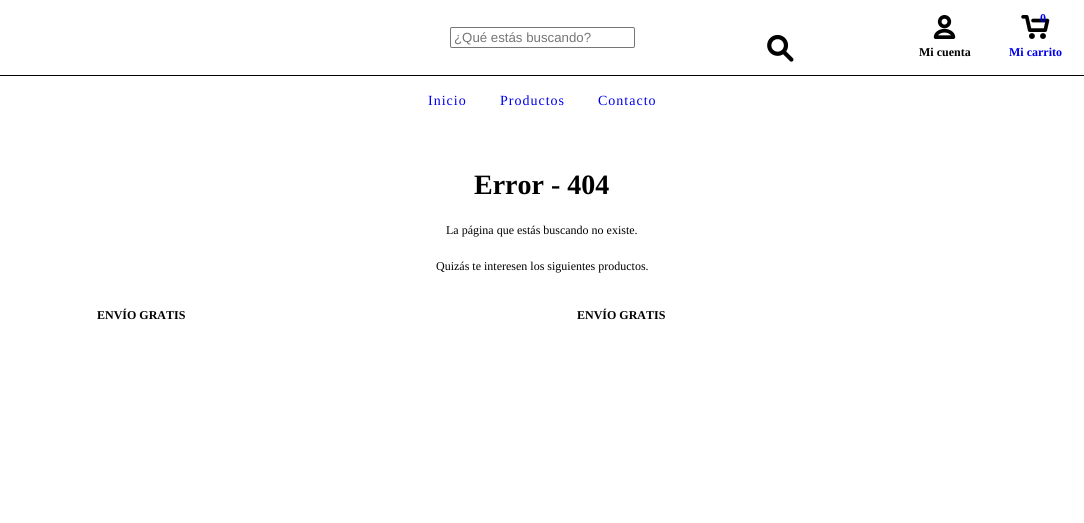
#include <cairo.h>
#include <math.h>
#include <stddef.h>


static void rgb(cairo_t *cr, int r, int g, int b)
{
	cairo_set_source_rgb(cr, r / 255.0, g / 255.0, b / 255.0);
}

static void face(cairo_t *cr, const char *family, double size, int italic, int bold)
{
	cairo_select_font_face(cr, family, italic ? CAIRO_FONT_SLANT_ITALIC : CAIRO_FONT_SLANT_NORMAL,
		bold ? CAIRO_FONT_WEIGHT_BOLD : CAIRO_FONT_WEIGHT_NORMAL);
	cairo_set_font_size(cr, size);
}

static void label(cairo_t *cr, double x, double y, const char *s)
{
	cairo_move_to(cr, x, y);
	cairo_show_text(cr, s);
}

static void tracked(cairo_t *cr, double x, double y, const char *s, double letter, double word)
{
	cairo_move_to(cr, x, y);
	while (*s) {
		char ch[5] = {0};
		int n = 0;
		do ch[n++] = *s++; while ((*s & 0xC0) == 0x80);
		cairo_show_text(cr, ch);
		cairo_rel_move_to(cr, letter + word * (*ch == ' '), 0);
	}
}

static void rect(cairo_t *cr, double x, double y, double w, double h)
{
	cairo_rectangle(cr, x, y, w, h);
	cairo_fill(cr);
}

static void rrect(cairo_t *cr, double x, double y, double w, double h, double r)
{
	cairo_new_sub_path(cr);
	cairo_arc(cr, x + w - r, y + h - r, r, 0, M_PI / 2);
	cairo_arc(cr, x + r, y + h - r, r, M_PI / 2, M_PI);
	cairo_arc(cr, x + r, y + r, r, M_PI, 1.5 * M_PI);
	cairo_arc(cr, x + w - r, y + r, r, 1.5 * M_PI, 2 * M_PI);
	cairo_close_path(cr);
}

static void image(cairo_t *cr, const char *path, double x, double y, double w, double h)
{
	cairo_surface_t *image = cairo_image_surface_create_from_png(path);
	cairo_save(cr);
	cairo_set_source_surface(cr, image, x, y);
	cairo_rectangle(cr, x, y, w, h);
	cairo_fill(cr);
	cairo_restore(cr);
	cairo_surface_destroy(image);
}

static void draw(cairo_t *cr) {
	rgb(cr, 255, 255, 255);
	cairo_paint(cr);
	rrect(cr, 450.5, 27.5, 184, 20, 1.5);
	rgb(cr, 118, 118, 118);
	cairo_set_line_width(cr, 1);
	cairo_stroke(cr);
	face(cr, "Liberation Sans", 13.25, 0, 0);
	rgb(cr, 117, 117, 117);
	label(cr, 454, 42, "¿Qué estás buscando?");
	image(cr, "image0.png", 767, 35, 27, 27);
	image(cr, "image1.png", 933, 15, 23, 24);
	face(cr, "Liberation Serif", 12, 0, 1);
	rgb(cr, 0, 0, 0);
	label(cr, 919, 56, "Mi cuenta");
	image(cr, "image2.png", 1021, 15, 29, 24);
	rgb(cr, 0, 0, 238);
	label(cr, 1040, 22, "0");
	label(cr, 1009, 56, "Mi carrito");
	rgb(cr, 0, 0, 0);
	rect(cr, 0, 75, 1084, 1);
	face(cr, "Liberation Serif", 14, 0, 0);
	rgb(cr, 0, 0, 238);
	tracked(cr, 428, 105, "Inicio", 1, 0);
	tracked(cr, 500, 105, "Productos", 1, 0);
	tracked(cr, 598, 105, "Contacto", 1, 0);
	face(cr, "Liberation Serif", 28, 0, 1);
	rgb(cr, 0, 0, 0);
	label(cr, 474, 194, "Error - 404");
	face(cr, "Liberation Serif", 12, 0, 0);
	label(cr, 446, 234, "La página que estás buscando no existe.");
	label(cr, 436, 270, "Quizás te interesen los siguientes productos.");
	face(cr, "Liberation Serif", 12, 0, 1);
	label(cr, 97, 319, "ENVÍO GRATIS");
	label(cr, 577, 319, "ENVÍO GRATIS");
}

int main(void) {
	cairo_surface_t *surface = cairo_image_surface_create(CAIRO_FORMAT_RGB24, 1084, 523);
	cairo_t *cr = cairo_create(surface);
	cairo_font_options_t *options = cairo_font_options_create();
	cairo_font_options_set_hint_metrics(options, CAIRO_HINT_METRICS_OFF);
	cairo_font_options_set_hint_style(options, CAIRO_HINT_STYLE_NONE);
	cairo_set_font_options(cr, options);
	cairo_set_miter_limit(cr, 4);
	draw(cr);
	cairo_surface_write_to_png(surface, "render.png");
	cairo_font_options_destroy(options);
	cairo_destroy(cr);
	cairo_surface_destroy(surface);
	return 0;
}
